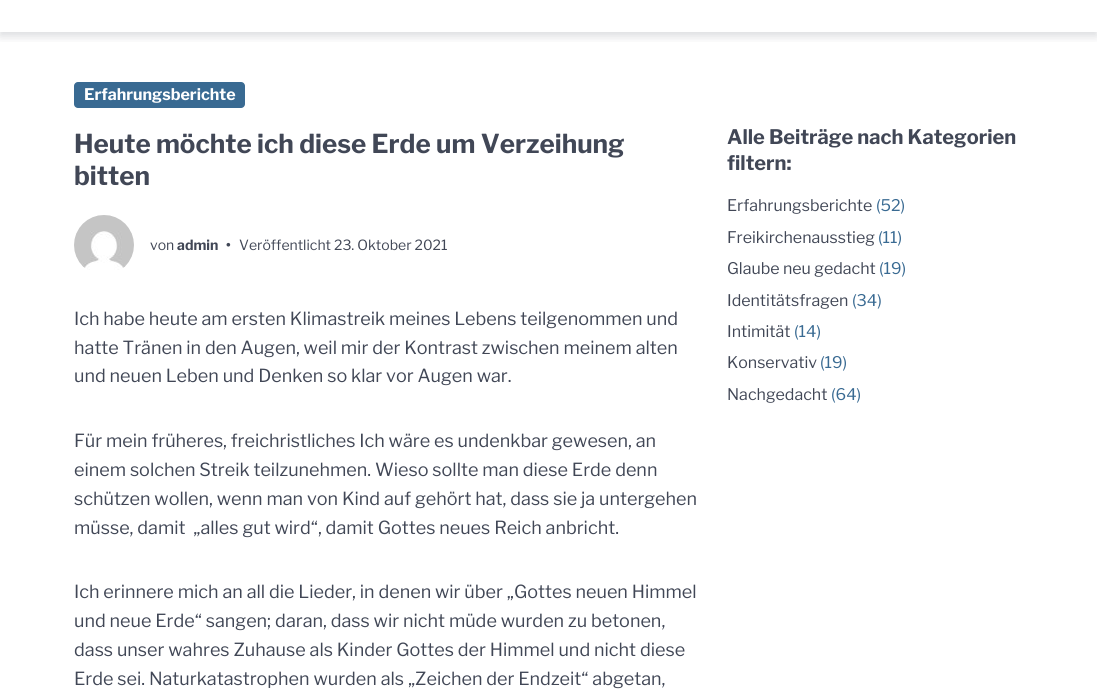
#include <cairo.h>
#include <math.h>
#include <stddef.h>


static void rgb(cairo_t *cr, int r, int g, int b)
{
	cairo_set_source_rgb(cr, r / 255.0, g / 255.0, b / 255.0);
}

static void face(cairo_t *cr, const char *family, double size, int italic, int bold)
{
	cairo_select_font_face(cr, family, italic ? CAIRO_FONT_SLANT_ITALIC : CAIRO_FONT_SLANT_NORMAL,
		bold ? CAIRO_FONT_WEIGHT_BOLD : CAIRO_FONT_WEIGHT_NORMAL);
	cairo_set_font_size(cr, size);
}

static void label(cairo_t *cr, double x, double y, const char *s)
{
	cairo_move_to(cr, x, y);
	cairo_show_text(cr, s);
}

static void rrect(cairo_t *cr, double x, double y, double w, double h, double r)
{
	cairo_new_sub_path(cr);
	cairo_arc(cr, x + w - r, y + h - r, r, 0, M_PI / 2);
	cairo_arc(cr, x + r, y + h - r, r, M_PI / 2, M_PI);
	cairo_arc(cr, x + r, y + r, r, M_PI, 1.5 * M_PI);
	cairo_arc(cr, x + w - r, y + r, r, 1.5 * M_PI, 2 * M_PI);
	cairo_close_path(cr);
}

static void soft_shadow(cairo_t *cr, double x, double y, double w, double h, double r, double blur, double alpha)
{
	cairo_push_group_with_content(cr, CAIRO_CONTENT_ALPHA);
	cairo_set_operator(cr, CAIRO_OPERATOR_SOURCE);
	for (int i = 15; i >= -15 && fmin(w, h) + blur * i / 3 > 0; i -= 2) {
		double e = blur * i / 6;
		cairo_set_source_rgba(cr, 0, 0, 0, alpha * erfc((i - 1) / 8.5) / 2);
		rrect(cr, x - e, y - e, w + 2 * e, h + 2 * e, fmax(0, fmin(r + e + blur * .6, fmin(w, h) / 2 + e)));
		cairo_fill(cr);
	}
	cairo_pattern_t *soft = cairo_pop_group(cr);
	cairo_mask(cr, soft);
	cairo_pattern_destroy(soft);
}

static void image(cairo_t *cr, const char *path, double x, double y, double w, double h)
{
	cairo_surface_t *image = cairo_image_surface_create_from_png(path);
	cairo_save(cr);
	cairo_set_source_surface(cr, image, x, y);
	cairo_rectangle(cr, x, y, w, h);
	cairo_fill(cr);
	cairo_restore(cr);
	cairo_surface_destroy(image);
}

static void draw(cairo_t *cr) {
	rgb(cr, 255, 255, 255);
	cairo_paint(cr);
	cairo_save(cr);
	cairo_rectangle(cr, 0, 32, 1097, 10);
	cairo_clip(cr);
	rgb(cr, 65, 71, 86);
	soft_shadow(cr, 0, -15, 1097, 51, 0, 5, 0.2);
	cairo_restore(cr);
	rgb(cr, 57, 106, 146);
	rrect(cr, 74, 82, 171, 26, 4);
	cairo_fill(cr);
	face(cr, "Libre Franklin", 16, 0, 1);
	rgb(cr, 255, 255, 255);
	label(cr, 84, 100, "Erfahrungsberichte");
	face(cr, "Libre Franklin", 26, 0, 1);
	rgb(cr, 65, 71, 86);
	label(cr, 74, 153, "Heute möchte ich diese Erde um Verzeihung");
	label(cr, 74, 185, "bitten");
	image(cr, "image0.png", 74, 215, 60, 55);
	face(cr, "Libre Franklin", 14, 0, 0);
	label(cr, 150, 250, "von");
	face(cr, "Libre Franklin", 14, 0, 1);
	label(cr, 177, 250, "admin");
	label(cr, 226, 250, "•");
	face(cr, "Libre Franklin", 14, 0, 0);
	label(cr, 239, 250, "Veröffentlicht 23. Oktober 2021");
	face(cr, "Libre Franklin", 18, 0, 0);
	label(cr, 74, 325, "Ich habe heute am ersten Klimastreik meines Lebens teilgenommen und");
	label(cr, 74, 354, "hatte Tränen in den Augen, weil mir der Kontrast zwischen meinem alten");
	label(cr, 74, 382, "und neuen Leben und Denken so klar vor Augen war.");
	label(cr, 74, 447, "Für mein früheres, freichristliches Ich wäre es undenkbar gewesen, an");
	label(cr, 74, 476, "einem solchen Streik teilzunehmen. Wieso sollte man diese Erde denn");
	label(cr, 74, 505, "schützen wollen, wenn man von Kind auf gehört hat, dass sie ja untergehen");
	label(cr, 74, 534, "müsse, damit  „alles gut wird“, damit Gottes neues Reich anbricht.");
	label(cr, 74, 598, "Ich erinnere mich an all die Lieder, in denen wir über „Gottes neuen Himmel");
	label(cr, 74, 627, "und neue Erde“ sangen; daran, dass wir nicht müde wurden zu betonen,");
	label(cr, 74, 656, "dass unser wahres Zuhause als Kinder Gottes der Himmel und nicht diese");
	label(cr, 74, 685, "Erde sei. Naturkatastrophen wurden als „Zeichen der Endzeit“ abgetan,");
	face(cr, "Libre Franklin", 20, 0, 1);
	label(cr, 727, 144, "Alle Beiträge nach Kategorien");
	label(cr, 727, 170, "filtern:");
	face(cr, "Libre Franklin", 16, 0, 0);
	label(cr, 727, 211, "Erfahrungsberichte");
	rgb(cr, 57, 106, 146);
	label(cr, 876, 211, "(52)");
	rgb(cr, 65, 71, 86);
	label(cr, 727, 243, "Freikirchenausstieg");
	rgb(cr, 57, 106, 146);
	label(cr, 878, 243, "(11)");
	rgb(cr, 65, 71, 86);
	label(cr, 727, 274, "Glaube neu gedacht");
	rgb(cr, 57, 106, 146);
	label(cr, 879, 274, "(19)");
	rgb(cr, 65, 71, 86);
	label(cr, 727, 306, "Identitätsfragen");
	rgb(cr, 57, 106, 146);
	label(cr, 852, 306, "(34)");
	rgb(cr, 65, 71, 86);
	label(cr, 727, 337, "Intimität");
	rgb(cr, 57, 106, 146);
	label(cr, 794, 337, "(14)");
	rgb(cr, 65, 71, 86);
	label(cr, 727, 368, "Konservativ");
	rgb(cr, 57, 106, 146);
	label(cr, 820, 368, "(19)");
	rgb(cr, 65, 71, 86);
	label(cr, 727, 400, "Nachgedacht");
	rgb(cr, 57, 106, 146);
	label(cr, 831, 400, "(64)");
}

int main(void) {
	cairo_surface_t *surface = cairo_image_surface_create(CAIRO_FORMAT_RGB24, 1097, 692);
	cairo_t *cr = cairo_create(surface);
	cairo_font_options_t *options = cairo_font_options_create();
	cairo_font_options_set_hint_metrics(options, CAIRO_HINT_METRICS_OFF);
	cairo_font_options_set_hint_style(options, CAIRO_HINT_STYLE_NONE);
	cairo_set_font_options(cr, options);
	cairo_set_miter_limit(cr, 4);
	draw(cr);
	cairo_surface_write_to_png(surface, "render.png");
	cairo_font_options_destroy(options);
	cairo_destroy(cr);
	cairo_surface_destroy(surface);
	return 0;
}
